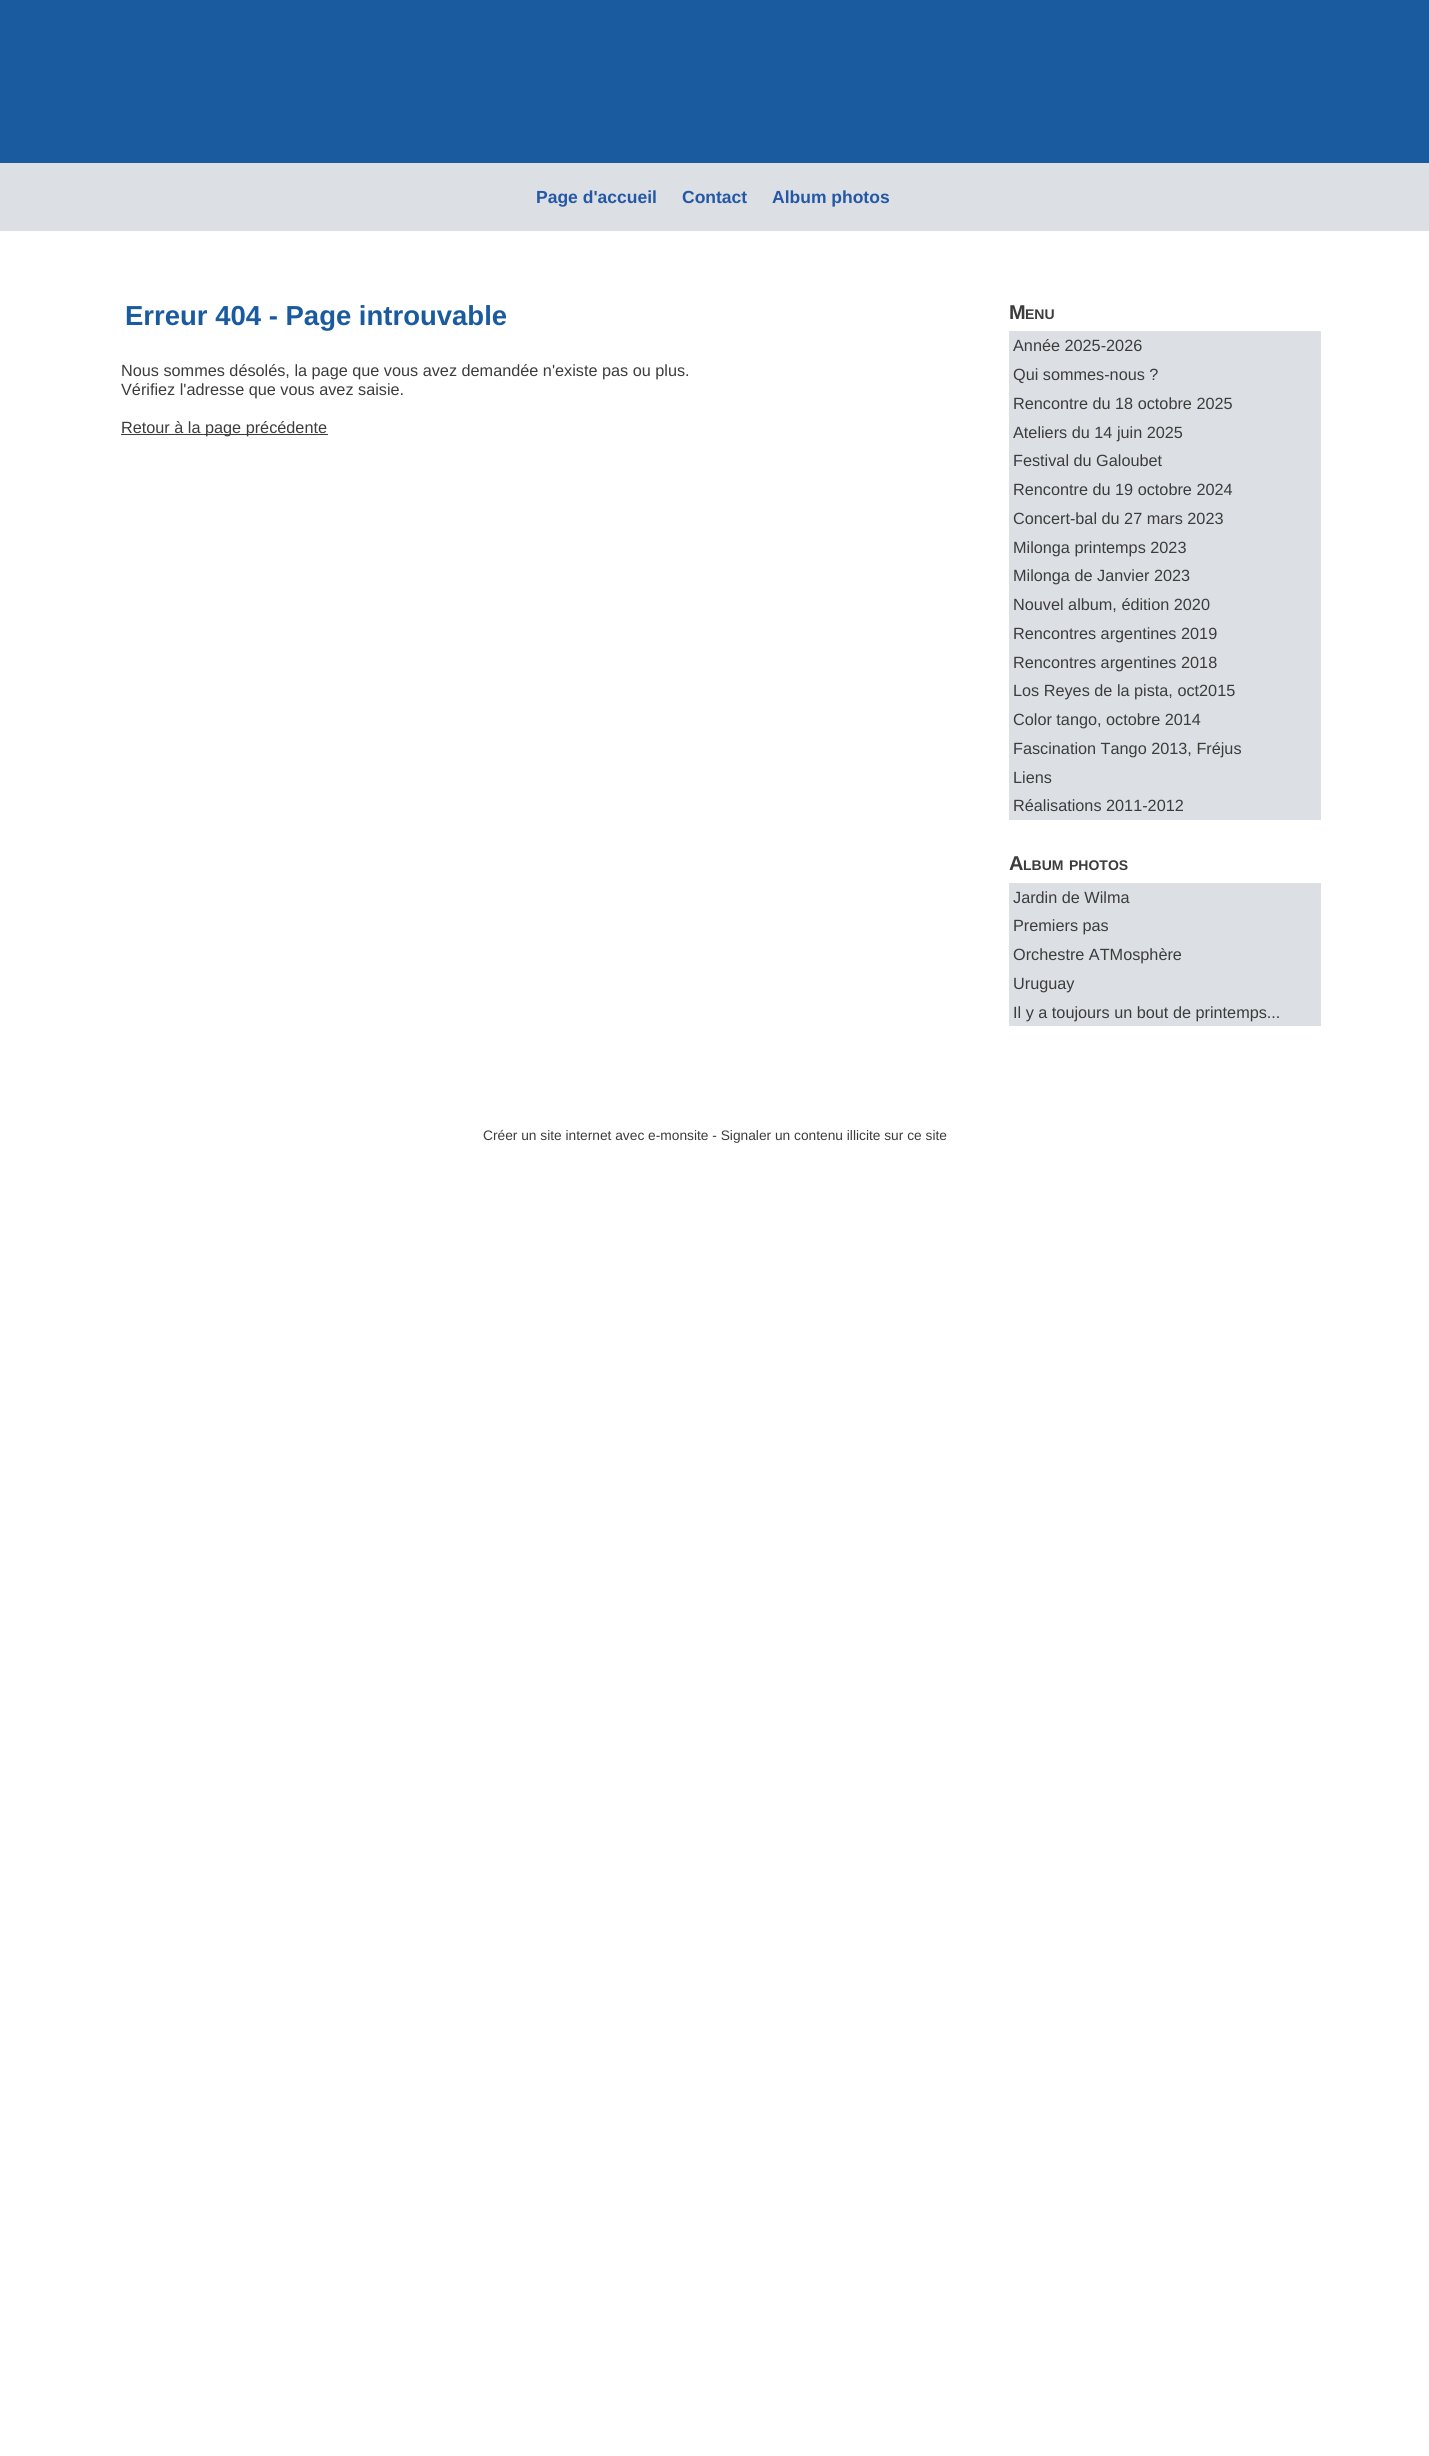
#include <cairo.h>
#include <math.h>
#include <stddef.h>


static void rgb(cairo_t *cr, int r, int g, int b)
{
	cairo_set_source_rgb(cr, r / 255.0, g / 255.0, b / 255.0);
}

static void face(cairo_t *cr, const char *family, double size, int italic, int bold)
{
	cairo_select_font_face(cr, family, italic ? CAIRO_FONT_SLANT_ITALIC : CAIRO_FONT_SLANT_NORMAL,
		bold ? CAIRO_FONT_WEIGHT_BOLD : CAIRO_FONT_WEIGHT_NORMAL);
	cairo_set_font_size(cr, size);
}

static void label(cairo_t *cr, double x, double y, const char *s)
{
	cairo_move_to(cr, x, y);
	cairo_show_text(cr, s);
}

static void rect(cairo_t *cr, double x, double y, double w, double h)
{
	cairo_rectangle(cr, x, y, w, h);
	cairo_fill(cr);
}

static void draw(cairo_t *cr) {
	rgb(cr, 255, 255, 255);
	cairo_paint(cr);
	rgb(cr, 26, 90, 159);
	rect(cr, 0, 0, 1429, 163);
	rgb(cr, 220, 223, 227);
	rect(cr, 0, 163, 1429, 68);
	face(cr, "Liberation Sans", 17.5, 0, 1);
	rgb(cr, 36, 88, 166);
	label(cr, 536, 203, "Page d'accueil");
	label(cr, 682, 203, "Contact");
	label(cr, 772, 203, "Album photos");
	face(cr, "Liberation Sans", 27.5, 0, 1);
	rgb(cr, 26, 90, 159);
	label(cr, 125, 325, "Erreur 404 - Page introuvable");
	face(cr, "Liberation Sans", 16.25, 0, 0);
	rgb(cr, 60, 60, 60);
	label(cr, 121, 376, "Nous sommes désolés, la page que vous avez demandée n'existe pas ou plus.");
	label(cr, 121, 395, "Vérifiez l'adresse que vous avez saisie.");
	rect(cr, 121, 434, 207, 1);
	label(cr, 121, 433, "Retour à la page précédente");
	rgb(cr, 220, 223, 227);
	rect(cr, 1009, 331, 312, 489);
	face(cr, "Liberation Sans", 20, 0, 1);
	rgb(cr, 60, 60, 60);
	label(cr, 1009, 319, "M");
	face(cr, "Liberation Sans", 14, 0, 1);
	label(cr, 1025, 319, "ENU");
	face(cr, "Liberation Sans", 16.25, 0, 0);
	label(cr, 1013, 351, "Année 2025-2026");
	label(cr, 1013, 380, "Qui sommes-nous ?");
	label(cr, 1013, 409, "Rencontre du 18 octobre 2025");
	label(cr, 1013, 438, "Ateliers du 14 juin 2025");
	label(cr, 1013, 466, "Festival du Galoubet");
	label(cr, 1013, 495, "Rencontre du 19 octobre 2024");
	label(cr, 1013, 524, "Concert-bal du 27 mars 2023");
	label(cr, 1013, 553, "Milonga printemps 2023");
	label(cr, 1013, 581, "Milonga de Janvier 2023");
	label(cr, 1013, 610, "Nouvel album, édition 2020");
	label(cr, 1013, 639, "Rencontres argentines 2019");
	label(cr, 1013, 668, "Rencontres argentines 2018");
	label(cr, 1013, 696, "Los Reyes de la pista, oct2015");
	label(cr, 1013, 725, "Color tango, octobre 2014");
	label(cr, 1013, 754, "Fascination Tango 2013, Fréjus");
	label(cr, 1013, 783, "Liens");
	label(cr, 1013, 811, "Réalisations 2011-2012");
	rgb(cr, 220, 223, 227);
	rect(cr, 1009, 883, 312, 143);
	face(cr, "Liberation Sans", 20, 0, 1);
	rgb(cr, 60, 60, 60);
	label(cr, 1009, 870, "A");
	face(cr, "Liberation Sans", 14, 0, 1);
	label(cr, 1023, 870, "LBUM");
	label(cr, 1069, 870, "PHOTOS");
	face(cr, "Liberation Sans", 16.25, 0, 0);
	label(cr, 1013, 903, "Jardin de Wilma");
	label(cr, 1013, 931, "Premiers pas");
	label(cr, 1013, 960, "Orchestre ATMosphère");
	label(cr, 1013, 989, "Uruguay");
	label(cr, 1013, 1018, "Il y a toujours un bout de printemps...");
	face(cr, "Liberation Sans", 13.75, 0, 0);
	label(cr, 483, 1140, "Créer un site internet avec e-monsite - Signaler un contenu illicite sur ce site");
}

int main(void) {
	cairo_surface_t *surface = cairo_image_surface_create(CAIRO_FORMAT_RGB24, 1429, 2456);
	cairo_t *cr = cairo_create(surface);
	cairo_font_options_t *options = cairo_font_options_create();
	cairo_font_options_set_hint_metrics(options, CAIRO_HINT_METRICS_OFF);
	cairo_font_options_set_hint_style(options, CAIRO_HINT_STYLE_NONE);
	cairo_set_font_options(cr, options);
	cairo_set_miter_limit(cr, 4);
	draw(cr);
	cairo_surface_write_to_png(surface, "render.png");
	cairo_font_options_destroy(options);
	cairo_destroy(cr);
	cairo_surface_destroy(surface);
	return 0;
}
